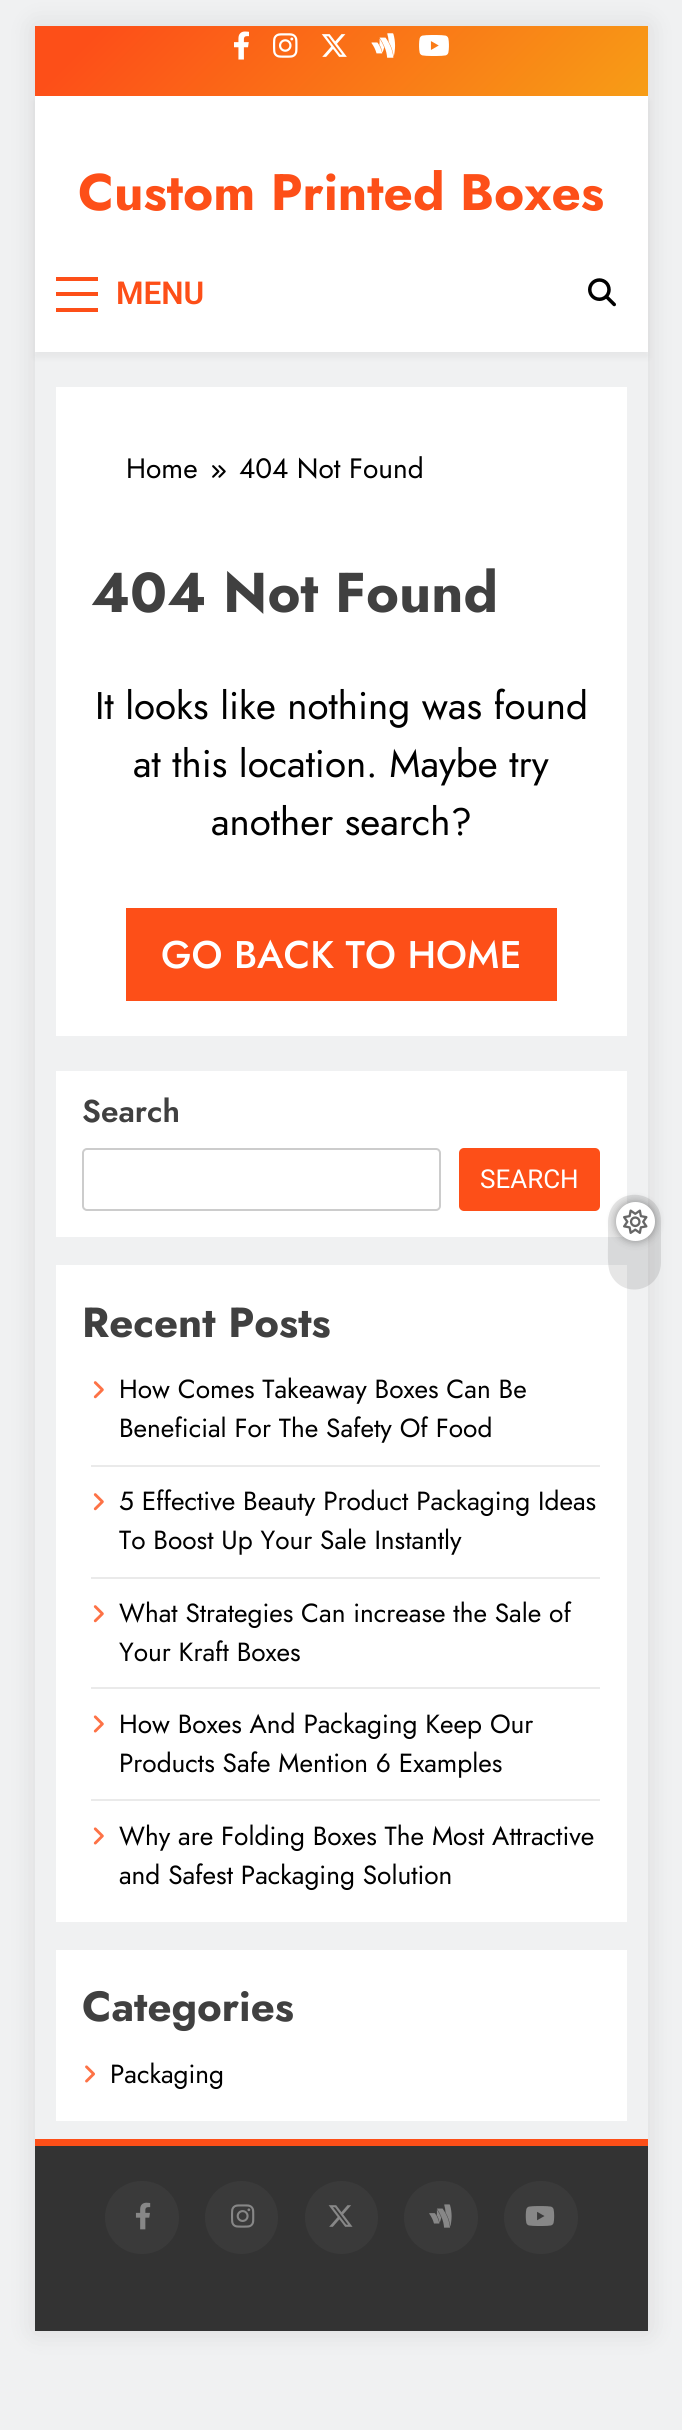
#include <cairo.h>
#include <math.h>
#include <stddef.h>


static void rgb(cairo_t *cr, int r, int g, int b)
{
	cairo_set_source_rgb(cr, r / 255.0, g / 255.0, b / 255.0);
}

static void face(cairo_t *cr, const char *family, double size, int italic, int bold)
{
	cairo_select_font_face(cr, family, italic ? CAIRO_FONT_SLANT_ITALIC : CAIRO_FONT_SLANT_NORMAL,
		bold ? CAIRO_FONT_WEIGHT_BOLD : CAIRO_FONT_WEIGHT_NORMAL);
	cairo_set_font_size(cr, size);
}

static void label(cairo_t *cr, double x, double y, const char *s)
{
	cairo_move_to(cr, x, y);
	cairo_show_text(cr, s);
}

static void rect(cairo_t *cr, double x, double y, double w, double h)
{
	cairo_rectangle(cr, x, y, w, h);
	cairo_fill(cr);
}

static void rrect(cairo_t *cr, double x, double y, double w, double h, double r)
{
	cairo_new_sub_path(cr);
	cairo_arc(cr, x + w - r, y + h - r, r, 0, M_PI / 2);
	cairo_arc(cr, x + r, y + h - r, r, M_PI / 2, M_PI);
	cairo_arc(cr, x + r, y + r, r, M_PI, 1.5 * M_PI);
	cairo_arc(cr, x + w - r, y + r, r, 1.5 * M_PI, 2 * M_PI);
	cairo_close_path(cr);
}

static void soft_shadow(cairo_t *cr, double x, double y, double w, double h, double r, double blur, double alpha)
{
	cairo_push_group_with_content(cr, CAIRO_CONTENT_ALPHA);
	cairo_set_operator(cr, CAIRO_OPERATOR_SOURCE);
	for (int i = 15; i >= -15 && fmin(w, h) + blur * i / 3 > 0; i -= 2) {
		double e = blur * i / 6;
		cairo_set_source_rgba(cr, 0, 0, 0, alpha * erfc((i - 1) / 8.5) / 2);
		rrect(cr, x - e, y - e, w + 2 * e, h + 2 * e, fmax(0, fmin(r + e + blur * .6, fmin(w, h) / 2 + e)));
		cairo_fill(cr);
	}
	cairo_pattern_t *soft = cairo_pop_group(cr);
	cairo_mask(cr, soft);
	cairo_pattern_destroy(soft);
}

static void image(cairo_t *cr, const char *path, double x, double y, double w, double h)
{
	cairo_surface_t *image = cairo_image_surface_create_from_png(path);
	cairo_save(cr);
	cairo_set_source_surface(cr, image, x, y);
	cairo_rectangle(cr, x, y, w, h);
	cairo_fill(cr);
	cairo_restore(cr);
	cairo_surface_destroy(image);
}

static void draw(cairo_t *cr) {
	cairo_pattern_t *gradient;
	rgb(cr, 240, 241, 242);
	cairo_paint(cr);
	cairo_save(cr);
	cairo_set_fill_rule(cr, CAIRO_FILL_RULE_EVEN_ODD);
	cairo_new_path(cr);
	cairo_move_to(cr, 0, 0);
	cairo_line_to(cr, 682, 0);
	cairo_line_to(cr, 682, 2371);
	cairo_line_to(cr, 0, 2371);
	cairo_close_path(cr);
	cairo_move_to(cr, 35, 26);
	cairo_line_to(cr, 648, 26);
	cairo_line_to(cr, 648, 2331);
	cairo_line_to(cr, 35, 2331);
	cairo_close_path(cr);
	cairo_clip(cr);
	rgb(cr, 0, 0, 0);
	soft_shadow(cr, 35, 26, 613, 2305, 0, 13, 0.1);
	cairo_restore(cr);
	gradient = cairo_pattern_create_linear(171, -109, 512, 232);
	cairo_pattern_add_color_stop_rgba(gradient, 0.1, 0.992, 0.31, 0.094, 1);
	cairo_pattern_add_color_stop_rgba(gradient, 1, 0.969, 0.616, 0.086, 1);
	cairo_set_source(cr, gradient);
	cairo_pattern_destroy(gradient);
	rect(cr, 35, 26, 613, 70);
	image(cr, "image0.png", 234, 31, 15, 29);
	image(cr, "image1.png", 273, 33, 25, 25);
	image(cr, "image2.png", 321, 34, 26, 23);
	image(cr, "image3.png", 371, 33, 25, 25);
	image(cr, "image4.png", 419, 35, 30, 21);
	rgb(cr, 0, 0, 0);
	soft_shadow(cr, 35, 102, 613, 255, 0, 3.5, 0.05);
	rgb(cr, 255, 255, 255);
	rect(cr, 35, 96, 613, 256);
	face(cr, "Jost", 51.25, 0, 1);
	rgb(cr, 253, 79, 24);
	label(cr, 78, 210, "Custom Printed Boxes");
	rect(cr, 56, 277, 42, 4);
	rect(cr, 56, 292, 42, 4);
	rect(cr, 56, 308, 42, 4);
	face(cr, "Roboto SemiBold", 31.5, 0, 0);
	label(cr, 116, 304, "MENU");
	image(cr, "image5.png", 588, 278, 28, 29);
	rgb(cr, 255, 255, 255);
	rect(cr, 56, 1071, 571, 166);
	rect(cr, 56, 1265, 571, 657);
	cairo_set_source_rgba(cr, 0, 0, 0, 0.1);
	cairo_new_path(cr);
	cairo_move_to(cr, 661, 1221);
	cairo_line_to(cr, 661, 1263);
	cairo_curve_to(cr, 660, 1292, 622, 1300, 610, 1273);
	cairo_curve_to(cr, 607, 1265, 608, 1251, 608, 1242);
	cairo_line_to(cr, 608, 1221);
	cairo_curve_to(cr, 610, 1185, 661, 1187, 661, 1221);
	cairo_close_path(cr);
	cairo_fill(cr);
	rgb(cr, 0, 0, 0);
	soft_shadow(cr, 616, 1202, 39, 39, 19.5, 4.5, 0.35);
	rgb(cr, 255, 255, 255);
	cairo_arc(cr, 635.5, 1221.5, 19.5, 0, 2 * M_PI);
	cairo_fill(cr);
	image(cr, "image6.png", 623, 1209, 25, 25);
	rect(cr, 56, 387, 571, 649);
	face(cr, "Jost", 28, 0, 0);
	rgb(cr, 0, 0, 0);
	label(cr, 126, 478, "Home");
	image(cr, "image7.png", 212, 465, 14, 13);
	label(cr, 239, 478, "404 Not Found");
	face(cr, "Jost", 56, 0, 1);
	rgb(cr, 64, 64, 64);
	label(cr, 91, 612, "404 Not Found");
	face(cr, "Jost", 38.5, 0, 0);
	rgb(cr, 0, 0, 0);
	label(cr, 95, 719, "It looks like nothing was found");
	label(cr, 133, 777, "at this location. Maybe try");
	label(cr, 211, 835, "another search?");
	rgb(cr, 253, 79, 24);
	rect(cr, 126, 908, 431, 93);
	face(cr, "Jost Medium", 38.5, 0, 0);
	rgb(cr, 255, 255, 255);
	label(cr, 161, 968, "GO BACK TO HOME");
	face(cr, "Jost SemiBold", 31.5, 0, 0);
	rgb(cr, 64, 64, 64);
	label(cr, 82, 1122, "Search");
	rrect(cr, 83, 1149, 357, 61, 4);
	rgb(cr, 204, 204, 204);
	cairo_stroke(cr);
	rgb(cr, 253, 79, 24);
	rrect(cr, 459, 1148, 141, 63, 5);
	cairo_fill(cr);
	face(cr, "Roboto", 26, 0, 0);
	rgb(cr, 255, 255, 255);
	label(cr, 480, 1188, "SEARCH");
	face(cr, "Jost", 42, 0, 1);
	rgb(cr, 64, 64, 64);
	label(cr, 82, 1337, "Recent Posts");
	rgb(cr, 234, 234, 234);
	rect(cr, 91, 1465, 509, 2);
	image(cr, "image8.png", 93, 1381, 11, 18);
	face(cr, "Jost", 26.2, 0, 0);
	rgb(cr, 0, 0, 0);
	label(cr, 119, 1398, "How Comes Takeaway Boxes Can Be");
	label(cr, 119, 1437, "Beneficial For The Safety Of Food");
	rgb(cr, 234, 234, 234);
	rect(cr, 91, 1577, 509, 2);
	image(cr, "image8.png", 93, 1493, 11, 18);
	rgb(cr, 0, 0, 0);
	label(cr, 119, 1510, "5 Effective Beauty Product Packaging Ideas");
	label(cr, 119, 1549, "To Boost Up Your Sale Instantly");
	rgb(cr, 234, 234, 234);
	rect(cr, 91, 1687, 509, 2);
	image(cr, "image8.png", 93, 1605, 11, 18);
	rgb(cr, 0, 0, 0);
	label(cr, 119, 1622, "What Strategies Can increase the Sale of");
	label(cr, 119, 1661, "Your Kraft Boxes");
	rgb(cr, 234, 234, 234);
	rect(cr, 91, 1799, 509, 2);
	image(cr, "image9.png", 93, 1715, 11, 18);
	rgb(cr, 0, 0, 0);
	label(cr, 119, 1733, "How Boxes And Packaging Keep Our");
	label(cr, 119, 1772, "Products Safe Mention 6 Examples");
	image(cr, "image9.png", 93, 1827, 11, 18);
	label(cr, 119, 1845, "Why are Folding Boxes The Most Attractive");
	label(cr, 119, 1884, "and Safest Packaging Solution");
	rgb(cr, 255, 255, 255);
	rect(cr, 56, 1950, 571, 171);
	face(cr, "Jost", 42, 0, 1);
	rgb(cr, 64, 64, 64);
	label(cr, 82, 2021, "Categories");
	image(cr, "image10.png", 85, 2065, 10, 18);
	face(cr, "Jost", 26.2, 0, 0);
	rgb(cr, 0, 0, 0);
	label(cr, 110, 2083, "Packaging");
	rgb(cr, 253, 79, 24);
	rect(cr, 35, 2139, 613, 7);
	rgb(cr, 51, 51, 51);
	rect(cr, 35, 2146, 613, 185);
	rgb(cr, 58, 58, 58);
	rrect(cr, 105, 2181, 74, 73, 36.5);
	cairo_fill(cr);
	image(cr, "image11.png", 135, 2202, 16, 28);
	cairo_arc(cr, 241.5, 2217.5, 36.5, 0, 2 * M_PI);
	cairo_fill(cr);
	image(cr, "image12.png", 231, 2204, 24, 24);
	cairo_arc(cr, 341.5, 2217.5, 36.5, 0, 2 * M_PI);
	cairo_fill(cr);
	image(cr, "image13.png", 328, 2205, 25, 22);
	rrect(cr, 404, 2181, 74, 73, 36.5);
	cairo_fill(cr);
	image(cr, "image14.png", 429, 2204, 23, 24);
	rrect(cr, 504, 2181, 74, 73, 36.5);
	cairo_fill(cr);
	image(cr, "image15.png", 525, 2206, 30, 20);
}

int main(void) {
	cairo_surface_t *surface = cairo_image_surface_create(CAIRO_FORMAT_RGB24, 682, 2430);
	cairo_t *cr = cairo_create(surface);
	cairo_font_options_t *options = cairo_font_options_create();
	cairo_font_options_set_hint_metrics(options, CAIRO_HINT_METRICS_OFF);
	cairo_font_options_set_hint_style(options, CAIRO_HINT_STYLE_NONE);
	cairo_set_font_options(cr, options);
	cairo_set_miter_limit(cr, 4);
	draw(cr);
	cairo_surface_write_to_png(surface, "render.png");
	cairo_font_options_destroy(options);
	cairo_destroy(cr);
	cairo_surface_destroy(surface);
	return 0;
}
